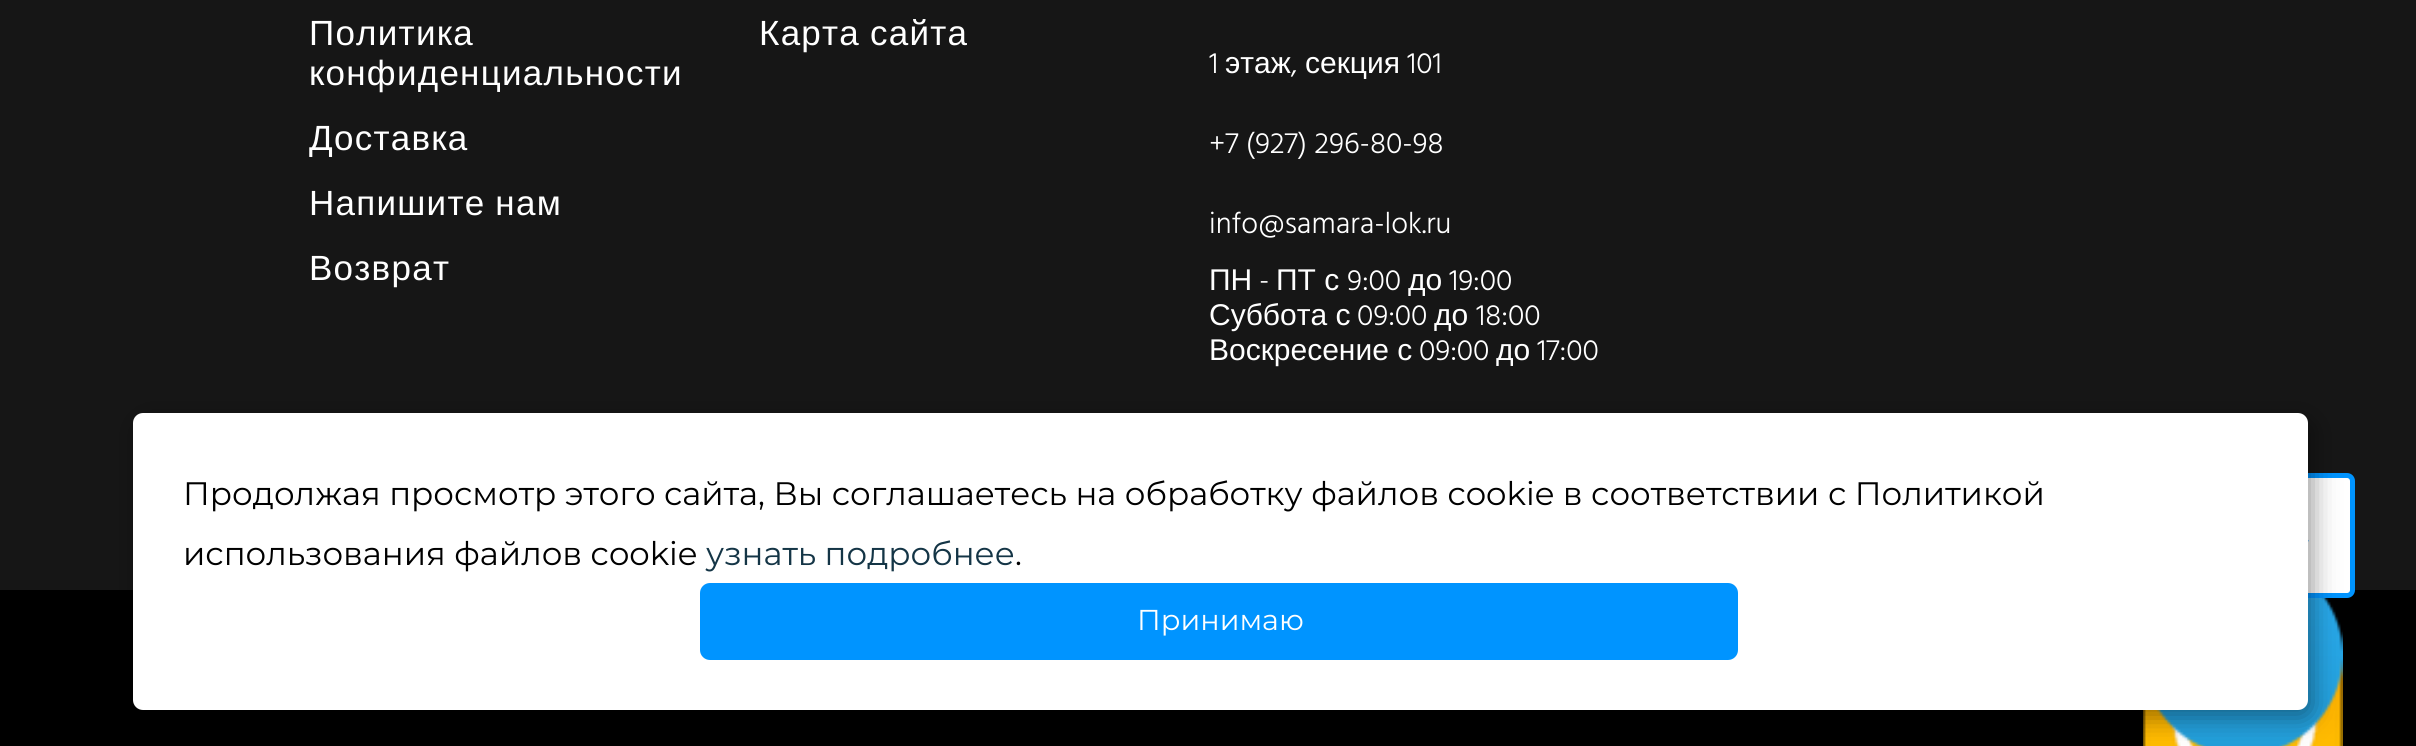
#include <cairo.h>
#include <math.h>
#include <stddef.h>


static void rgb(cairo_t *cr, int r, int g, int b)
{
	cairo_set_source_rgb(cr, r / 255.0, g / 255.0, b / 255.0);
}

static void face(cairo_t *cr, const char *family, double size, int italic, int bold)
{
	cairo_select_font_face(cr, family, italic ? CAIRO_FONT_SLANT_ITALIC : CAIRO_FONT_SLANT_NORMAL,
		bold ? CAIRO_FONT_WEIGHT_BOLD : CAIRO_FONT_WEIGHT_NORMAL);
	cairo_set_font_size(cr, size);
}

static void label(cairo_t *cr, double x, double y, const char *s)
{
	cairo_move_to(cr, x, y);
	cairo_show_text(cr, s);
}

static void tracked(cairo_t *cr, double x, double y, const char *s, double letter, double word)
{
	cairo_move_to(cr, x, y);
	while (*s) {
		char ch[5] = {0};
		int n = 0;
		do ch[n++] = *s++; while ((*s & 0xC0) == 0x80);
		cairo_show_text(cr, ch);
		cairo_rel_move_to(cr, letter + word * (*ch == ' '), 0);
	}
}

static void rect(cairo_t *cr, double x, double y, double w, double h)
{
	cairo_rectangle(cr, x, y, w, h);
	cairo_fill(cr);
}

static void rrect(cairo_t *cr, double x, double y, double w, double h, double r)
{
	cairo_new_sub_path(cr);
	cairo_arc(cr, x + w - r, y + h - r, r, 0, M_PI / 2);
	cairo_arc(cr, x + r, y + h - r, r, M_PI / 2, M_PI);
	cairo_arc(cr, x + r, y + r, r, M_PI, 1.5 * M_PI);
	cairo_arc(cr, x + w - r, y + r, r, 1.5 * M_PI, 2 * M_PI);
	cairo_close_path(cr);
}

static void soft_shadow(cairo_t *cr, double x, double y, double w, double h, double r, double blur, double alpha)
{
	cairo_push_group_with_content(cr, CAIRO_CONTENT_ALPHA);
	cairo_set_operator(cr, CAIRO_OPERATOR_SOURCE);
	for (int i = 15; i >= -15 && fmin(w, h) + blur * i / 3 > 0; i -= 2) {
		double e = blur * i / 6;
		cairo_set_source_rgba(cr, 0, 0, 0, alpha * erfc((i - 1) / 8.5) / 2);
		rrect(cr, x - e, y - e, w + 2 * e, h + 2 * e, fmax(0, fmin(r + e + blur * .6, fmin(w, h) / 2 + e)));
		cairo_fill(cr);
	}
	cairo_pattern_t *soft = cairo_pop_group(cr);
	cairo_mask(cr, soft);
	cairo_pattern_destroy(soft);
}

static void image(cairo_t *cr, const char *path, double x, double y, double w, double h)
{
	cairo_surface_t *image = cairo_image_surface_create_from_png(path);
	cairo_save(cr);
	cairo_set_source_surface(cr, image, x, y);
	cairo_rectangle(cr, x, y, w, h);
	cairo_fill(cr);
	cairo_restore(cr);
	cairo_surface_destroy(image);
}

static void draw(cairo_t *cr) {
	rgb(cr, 22, 22, 22);
	cairo_paint(cr);
	face(cr, "Liberation Sans", 35, 0, 0);
	rgb(cr, 255, 255, 255);
	tracked(cr, 309, 45, "Политика", 1.25, 0);
	tracked(cr, 309, 85, "конфиденциальности", 1.25, 0);
	tracked(cr, 309, 150, "Доставка", 1.25, 0);
	tracked(cr, 309, 215, "Напишите нам", 1.25, -1);
	tracked(cr, 309, 280, "Возврат", 1.25, 0);
	tracked(cr, 759, 45, "Карта сайта", 1.25, -1);
	face(cr, "Hind Light", 30, 0, 0);
	label(cr, 1209, 73, "1");
	face(cr, "Liberation Sans", 30, 0, 0);
	label(cr, 1225, 73, "этаж");
	face(cr, "Hind Light", 30, 0, 0);
	label(cr, 1291, 73, ",");
	face(cr, "Liberation Sans", 30, 0, 0);
	label(cr, 1305, 73, "секция");
	face(cr, "Hind Light", 30, 0, 0);
	label(cr, 1407, 73, "101");
	label(cr, 1209, 153, "+7 (927) 296-80-98");
	label(cr, 1209, 233, "info@samara-lok.ru");
	face(cr, "Liberation Sans", 30, 0, 0);
	label(cr, 1209, 290, "ПН");
	face(cr, "Hind Light", 30, 0, 0);
	label(cr, 1259, 290, "-");
	face(cr, "Liberation Sans", 30, 0, 0);
	label(cr, 1276, 290, "ПТ с");
	face(cr, "Hind Light", 30, 0, 0);
	label(cr, 1347, 290, "9:00");
	face(cr, "Liberation Sans", 30, 0, 0);
	label(cr, 1408, 290, "до");
	face(cr, "Hind Light", 30, 0, 0);
	label(cr, 1449, 290, "19:00");
	face(cr, "Liberation Sans", 30, 0, 0);
	label(cr, 1209, 325, "Суббота с");
	face(cr, "Hind Light", 30, 0, 0);
	label(cr, 1357, 325, "09:00");
	face(cr, "Liberation Sans", 30, 0, 0);
	label(cr, 1434, 325, "до");
	face(cr, "Hind Light", 30, 0, 0);
	label(cr, 1476, 325, "18:00");
	face(cr, "Liberation Sans", 30, 0, 0);
	label(cr, 1209, 360, "Воскресение с");
	face(cr, "Hind Light", 30, 0, 0);
	label(cr, 1419, 360, "09:00");
	face(cr, "Liberation Sans", 30, 0, 0);
	label(cr, 1496, 360, "до");
	face(cr, "Hind Light", 30, 0, 0);
	label(cr, 1537, 360, "17:00");
	rgb(cr, 0, 0, 0);
	rect(cr, 0, 590, 2416, 156);
	image(cr, "image1.png", 2143, 644, 200, 102);
	image(cr, "image0.png", 2156, 598, 187, 148);
	rgb(cr, 255, 255, 255);
	rrect(cr, 2232.5, 475.5, 120, 120, 5.5);
	cairo_fill_preserve(cr);
	rgb(cr, 0, 148, 255);
	cairo_set_line_width(cr, 5);
	cairo_stroke(cr);
	image(cr, "image2.png", 2308, 539, 1, 3);
	rgb(cr, 0, 0, 0);
	soft_shadow(cr, 138, 420, 2175, 298, 10, 12.5, 0.4);
	rgb(cr, 255, 255, 255);
	rrect(cr, 133, 413, 2175, 297, 10);
	cairo_fill(cr);
	face(cr, "Montserrat", 32.5, 0, 0);
	rgb(cr, 0, 0, 0);
	label(cr, 183, 505, "Продолжая просмотр этого сайта, Вы соглашаетесь на обработку файлов cookie в соответствии с Политикой");
	label(cr, 183, 565, "использования файлов cookie");
	rgb(cr, 20, 53, 70);
	label(cr, 706, 565, "узнать подробнее");
	rgb(cr, 0, 0, 0);
	label(cr, 1015, 565, ".");
	rgb(cr, 0, 148, 255);
	rrect(cr, 700, 583, 1038, 77, 10);
	cairo_fill(cr);
	face(cr, "Montserrat", 28.75, 0, 0);
	rgb(cr, 255, 255, 255);
	label(cr, 1137, 630, "Принимаю");
}

int main(void) {
	cairo_surface_t *surface = cairo_image_surface_create(CAIRO_FORMAT_RGB24, 2416, 746);
	cairo_t *cr = cairo_create(surface);
	cairo_font_options_t *options = cairo_font_options_create();
	cairo_font_options_set_hint_metrics(options, CAIRO_HINT_METRICS_OFF);
	cairo_font_options_set_hint_style(options, CAIRO_HINT_STYLE_NONE);
	cairo_set_font_options(cr, options);
	cairo_set_miter_limit(cr, 4);
	draw(cr);
	cairo_surface_write_to_png(surface, "render.png");
	cairo_font_options_destroy(options);
	cairo_destroy(cr);
	cairo_surface_destroy(surface);
	return 0;
}
